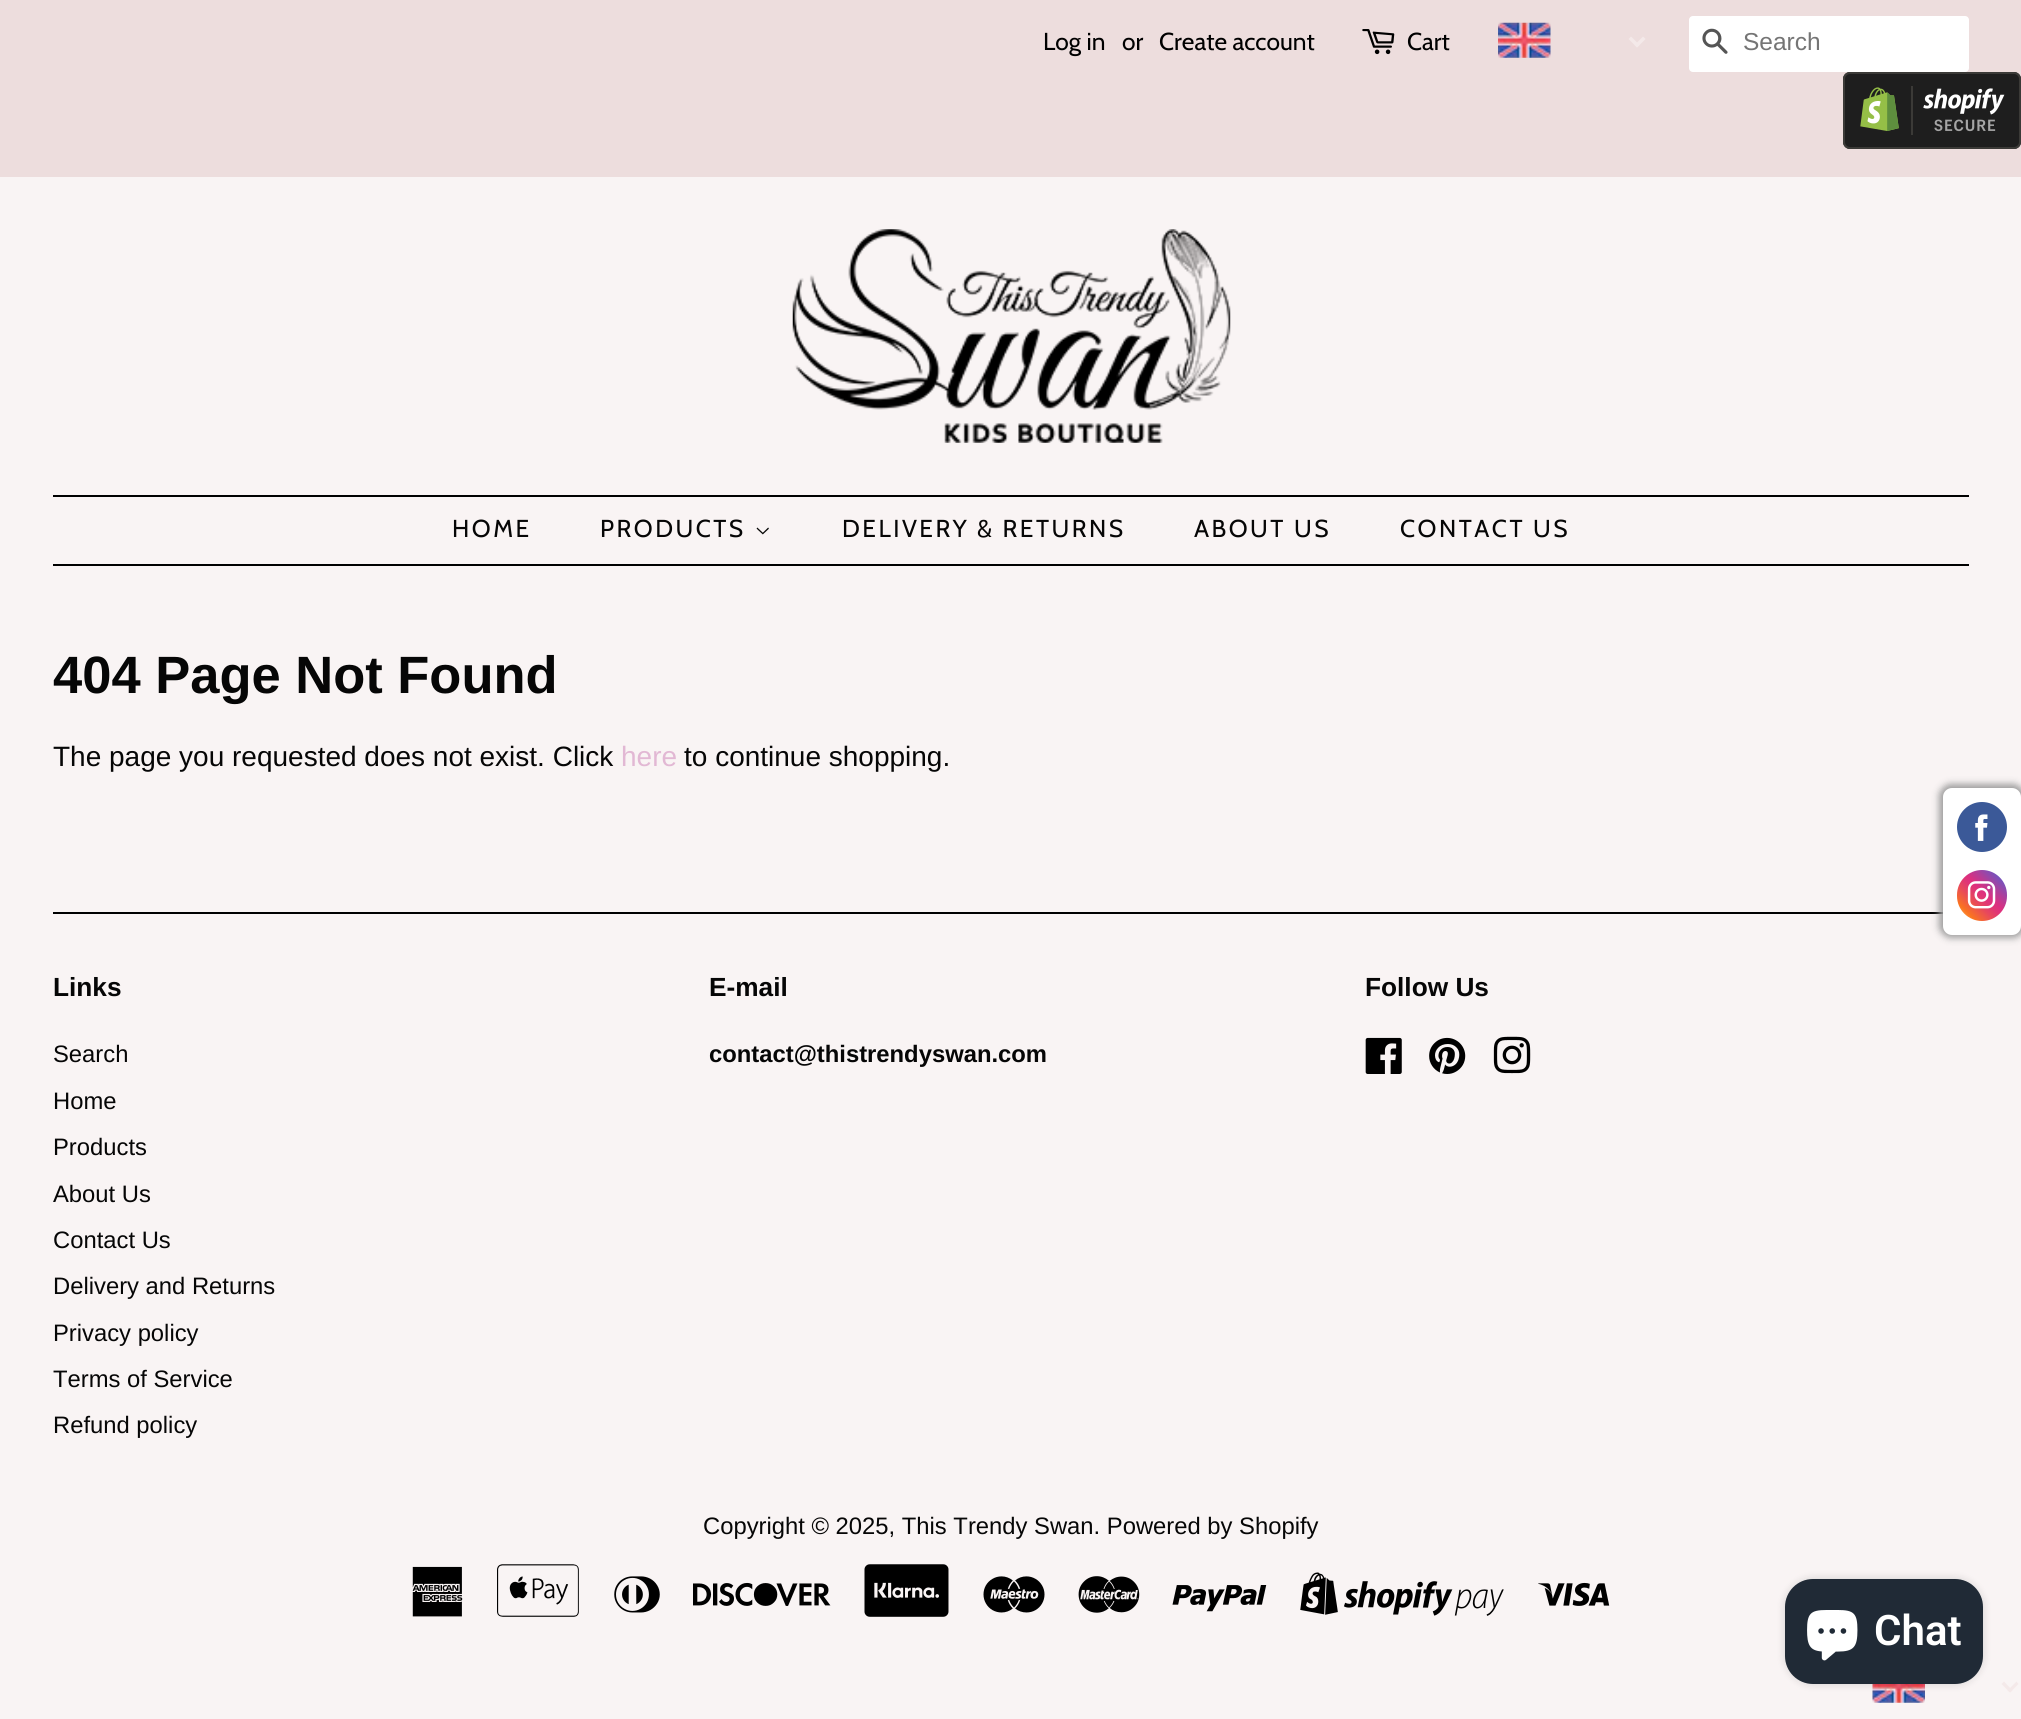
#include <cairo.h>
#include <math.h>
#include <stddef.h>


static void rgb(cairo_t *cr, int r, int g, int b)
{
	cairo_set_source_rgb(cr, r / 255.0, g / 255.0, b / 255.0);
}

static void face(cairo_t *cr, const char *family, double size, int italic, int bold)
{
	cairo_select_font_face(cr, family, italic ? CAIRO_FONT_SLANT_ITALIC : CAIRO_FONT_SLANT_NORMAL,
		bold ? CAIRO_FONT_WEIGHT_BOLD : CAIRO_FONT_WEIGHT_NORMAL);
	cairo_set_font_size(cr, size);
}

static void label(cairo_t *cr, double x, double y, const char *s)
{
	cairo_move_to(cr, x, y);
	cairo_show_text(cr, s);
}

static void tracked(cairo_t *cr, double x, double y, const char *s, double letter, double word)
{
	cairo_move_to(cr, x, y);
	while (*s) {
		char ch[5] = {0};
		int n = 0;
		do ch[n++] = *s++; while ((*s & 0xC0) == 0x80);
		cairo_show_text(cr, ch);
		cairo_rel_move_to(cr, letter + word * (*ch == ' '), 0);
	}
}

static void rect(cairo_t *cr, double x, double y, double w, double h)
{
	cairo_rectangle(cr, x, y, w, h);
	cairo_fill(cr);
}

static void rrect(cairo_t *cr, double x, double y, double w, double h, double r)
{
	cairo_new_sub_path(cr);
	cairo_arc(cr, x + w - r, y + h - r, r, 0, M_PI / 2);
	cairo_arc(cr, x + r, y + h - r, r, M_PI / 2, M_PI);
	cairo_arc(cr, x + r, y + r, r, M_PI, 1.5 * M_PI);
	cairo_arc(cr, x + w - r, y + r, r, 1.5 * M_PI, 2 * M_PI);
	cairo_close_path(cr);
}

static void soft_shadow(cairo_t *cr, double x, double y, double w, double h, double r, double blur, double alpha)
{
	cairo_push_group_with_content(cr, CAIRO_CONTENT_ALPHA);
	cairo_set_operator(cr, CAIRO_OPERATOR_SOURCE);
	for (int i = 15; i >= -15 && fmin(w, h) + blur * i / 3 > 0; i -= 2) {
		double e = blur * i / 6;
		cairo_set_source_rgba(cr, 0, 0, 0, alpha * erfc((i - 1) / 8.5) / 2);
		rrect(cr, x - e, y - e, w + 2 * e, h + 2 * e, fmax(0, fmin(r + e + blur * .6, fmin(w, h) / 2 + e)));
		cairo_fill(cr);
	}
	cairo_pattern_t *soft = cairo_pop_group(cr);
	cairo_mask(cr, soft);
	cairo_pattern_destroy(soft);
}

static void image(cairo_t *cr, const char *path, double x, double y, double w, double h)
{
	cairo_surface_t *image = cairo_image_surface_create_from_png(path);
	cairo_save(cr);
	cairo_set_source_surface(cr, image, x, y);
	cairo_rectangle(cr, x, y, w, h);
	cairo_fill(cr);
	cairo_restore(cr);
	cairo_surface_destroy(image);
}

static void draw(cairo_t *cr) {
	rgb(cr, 249, 244, 244);
	cairo_paint(cr);
	rgb(cr, 237, 221, 221);
	rect(cr, 0, 0, 2021, 177);
	face(cr, "Cabin", 24.5, 0, 0);
	rgb(cr, 0, 0, 0);
	label(cr, 1043, 50, "Log in");
	label(cr, 1122, 50, "or");
	label(cr, 1159, 50, "Create account");
	image(cr, "image0.png", 1362, 29, 33, 26);
	label(cr, 1407, 50, "Cart");
	image(cr, "image1.png", 1498, 22, 53, 36);
	rgb(cr, 244, 233, 233);
	cairo_new_path(cr);
	cairo_move_to(cr, 1643, 36.5);
	cairo_line_to(cr, 1645.5, 39);
	cairo_line_to(cr, 1637, 47.5);
	cairo_line_to(cr, 1634.5, 45);
	cairo_close_path(cr);
	cairo_fill(cr);
	cairo_new_path(cr);
	cairo_move_to(cr, 1631, 36.5);
	cairo_line_to(cr, 1639.5, 45);
	cairo_line_to(cr, 1637, 47.5);
	cairo_line_to(cr, 1628.5, 39);
	cairo_close_path(cr);
	cairo_fill(cr);
	rgb(cr, 255, 255, 255);
	rrect(cr, 1689, 16, 280, 56, 4);
	cairo_fill(cr);
	image(cr, "image2.png", 1702, 28, 26, 26);
	face(cr, "Liberation Sans", 24.5, 0, 0);
	rgb(cr, 117, 117, 117);
	label(cr, 1743, 50, "Search");
	image(cr, "image3.png", 1843, 72, 178, 77);
	image(cr, "image4.png", 792, 229, 439, 214);
	rgb(cr, 0, 0, 0);
	rect(cr, 53, 495, 1916, 2);
	rect(cr, 53, 564, 1916, 2);
	face(cr, "Cabin", 24.5, 0, 0);
	rgb(cr, 6, 6, 6);
	tracked(cr, 452, 537, "HOME", 2.5, 0);
	tracked(cr, 600, 537, "PRODUCTS", 2.5, 0);
	image(cr, "image5.png", 756, 527, 13, 8);
	tracked(cr, 842, 537, "DELIVERY & RETURNS", 2.5, 0);
	tracked(cr, 1194, 537, "ABOUT US", 2.5, 0);
	tracked(cr, 1400, 537, "CONTACT US", 2.5, 0);
	face(cr, "Liberation Sans", 52.5, 0, 1);
	label(cr, 53, 693, "404 Page Not Found");
	face(cr, "Liberation Sans", 28, 0, 0);
	label(cr, 53, 766, "The page you requested does not exist. Click");
	rgb(cr, 226, 184, 212);
	label(cr, 621, 766, "here");
	rgb(cr, 6, 6, 6);
	label(cr, 684, 766, "to continue shopping.");
	rgb(cr, 0, 0, 0);
	rect(cr, 53, 912, 1890, 2);
	rgb(cr, 158, 158, 158);
	soft_shadow(cr, 1939, 784, 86, 154, 12, 3.5, 1);
	rgb(cr, 255, 255, 255);
	rrect(cr, 1943, 788, 78, 147, 9);
	cairo_fill(cr);
	image(cr, "image6.png", 1957, 802, 50, 50);
	image(cr, "image7.png", 1957, 870, 50, 51);
	face(cr, "Liberation Sans", 26.25, 0, 1);
	rgb(cr, 6, 6, 6);
	label(cr, 53, 996, "Links");
	face(cr, "Liberation Sans", 23.8, 0, 0);
	label(cr, 53, 1062, "Search");
	label(cr, 53, 1109, "Home");
	label(cr, 53, 1155, "Products");
	label(cr, 53, 1202, "About Us");
	label(cr, 53, 1248, "Contact Us");
	label(cr, 53, 1294, "Delivery and Returns");
	label(cr, 53, 1341, "Privacy policy");
	label(cr, 53, 1387, "Terms of Service");
	label(cr, 53, 1433, "Refund policy");
	face(cr, "Liberation Sans", 26.25, 0, 1);
	label(cr, 709, 996, "E-mail");
	face(cr, "Liberation Sans", 23.8, 0, 1);
	label(cr, 709, 1062, "contact@thistrendyswan.com");
	face(cr, "Liberation Sans", 26.25, 0, 1);
	label(cr, 1365, 996, "Follow Us");
	image(cr, "image8.png", 1365, 1037, 37, 37);
	image(cr, "image9.png", 1429, 1037, 37, 37);
	image(cr, "image10.png", 1493, 1036, 38, 38);
	face(cr, "Liberation Sans", 23.8, 0, 0);
	label(cr, 703, 1534, "Copyright © 2025, This Trendy Swan. Powered by Shopify");
	image(cr, "image11.png", 412, 1566, 51, 51);
	image(cr, "image12.png", 497, 1564, 82, 53);
	image(cr, "image13.png", 614, 1576, 46, 37);
	image(cr, "image14.png", 693, 1582, 138, 24);
	image(cr, "image15.png", 864, 1564, 85, 53);
	image(cr, "image16.png", 983, 1576, 62, 37);
	image(cr, "image17.png", 1078, 1576, 62, 37);
	image(cr, "image18.png", 1172, 1585, 95, 27);
	image(cr, "image19.png", 1300, 1572, 204, 44);
	image(cr, "image20.png", 1538, 1582, 72, 24);
	image(cr, "image22.png", 1872, 1684, 53, 19);
	rgb(cr, 0, 0, 0);
	soft_shadow(cr, 1785, 1579, 198, 105, 28, 4.5, 0.15);
	rgb(cr, 32, 42, 54);
	rrect(cr, 1785, 1579, 198, 105, 28);
	cairo_fill(cr);
	image(cr, "image21.png", 1807, 1610, 51, 51);
	face(cr, "Roboto SemiBold", 42, 0, 0);
	rgb(cr, 255, 255, 255);
	label(cr, 1874, 1645, "Chat");
	rgb(cr, 244, 233, 233);
	cairo_new_path(cr);
	cairo_move_to(cr, 2016.5, 1681.5);
	cairo_line_to(cr, 2018.5, 1684);
	cairo_line_to(cr, 2010, 1692.5);
	cairo_line_to(cr, 2007.5, 1690.5);
	cairo_close_path(cr);
	cairo_fill(cr);
	cairo_new_path(cr);
	cairo_move_to(cr, 2004, 1681.5);
	cairo_line_to(cr, 2012.5, 1690.5);
	cairo_line_to(cr, 2010, 1692.5);
	cairo_line_to(cr, 2001.5, 1684);
	cairo_close_path(cr);
	cairo_fill(cr);
}

int main(void) {
	cairo_surface_t *surface = cairo_image_surface_create(CAIRO_FORMAT_RGB24, 2021, 1719);
	cairo_t *cr = cairo_create(surface);
	cairo_font_options_t *options = cairo_font_options_create();
	cairo_font_options_set_hint_metrics(options, CAIRO_HINT_METRICS_OFF);
	cairo_font_options_set_hint_style(options, CAIRO_HINT_STYLE_NONE);
	cairo_set_font_options(cr, options);
	cairo_set_miter_limit(cr, 4);
	draw(cr);
	cairo_surface_write_to_png(surface, "render.png");
	cairo_font_options_destroy(options);
	cairo_destroy(cr);
	cairo_surface_destroy(surface);
	return 0;
}
